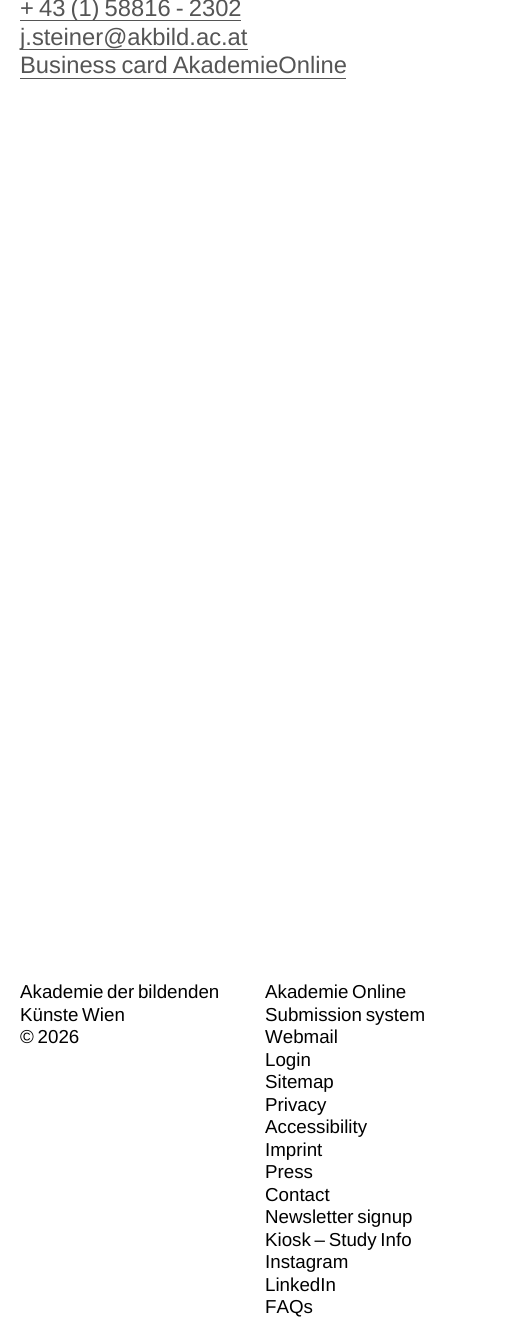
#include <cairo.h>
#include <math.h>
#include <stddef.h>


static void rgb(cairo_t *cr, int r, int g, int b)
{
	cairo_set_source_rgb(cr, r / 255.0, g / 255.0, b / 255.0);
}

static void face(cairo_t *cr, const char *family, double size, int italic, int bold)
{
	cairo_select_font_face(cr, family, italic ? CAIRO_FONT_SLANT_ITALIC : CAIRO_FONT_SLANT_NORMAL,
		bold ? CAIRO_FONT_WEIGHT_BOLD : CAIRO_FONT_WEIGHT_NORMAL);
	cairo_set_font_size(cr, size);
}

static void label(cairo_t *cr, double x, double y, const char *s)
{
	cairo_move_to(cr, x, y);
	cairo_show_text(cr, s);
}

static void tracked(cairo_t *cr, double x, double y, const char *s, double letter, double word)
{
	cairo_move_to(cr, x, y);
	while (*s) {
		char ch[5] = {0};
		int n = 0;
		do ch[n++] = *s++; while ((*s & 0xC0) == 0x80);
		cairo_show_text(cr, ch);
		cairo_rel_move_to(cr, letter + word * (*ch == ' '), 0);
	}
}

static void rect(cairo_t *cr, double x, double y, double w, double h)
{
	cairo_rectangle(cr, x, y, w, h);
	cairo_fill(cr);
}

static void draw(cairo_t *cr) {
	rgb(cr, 255, 255, 255);
	cairo_paint(cr);
	rgb(cr, 85, 85, 85);
	rect(cr, 20, 20, 221, 1);
	face(cr, "Liberation Sans", 23.75, 0, 0);
	tracked(cr, 20, 16, "+ 43 (1) 58816 - 2302", 0, -1.5);
	rect(cr, 20, 49, 228, 1);
	label(cr, 20, 45, "j.steiner@akbild.ac.at");
	tracked(cr, 20, 73, "Business card AkademieOnline", 0, -1.5);
	rect(cr, 20, 78, 326, 1);
	face(cr, "Liberation Sans", 18.75, 0, 0);
	rgb(cr, 0, 0, 0);
	tracked(cr, 20, 998, "Akademie der bildenden", 0, -1.5);
	tracked(cr, 20, 1021, "Künste Wien", 0, -1.5);
	tracked(cr, 20, 1043, "© 2026", 0, -1.5);
	tracked(cr, 265, 998, "Akademie Online", 0, -1.5);
	tracked(cr, 265, 1021, "Submission system", 0, -1.5);
	label(cr, 265, 1043, "Webmail");
	label(cr, 265, 1066, "Login");
	label(cr, 265, 1088, "Sitemap");
	label(cr, 265, 1111, "Privacy");
	label(cr, 265, 1133, "Accessibility");
	label(cr, 265, 1156, "Imprint");
	label(cr, 265, 1178, "Press");
	label(cr, 265, 1201, "Contact");
	tracked(cr, 265, 1223, "Newsletter signup", 0, -1.5);
	tracked(cr, 265, 1246, "Kiosk – Study Info", 0, -1.5);
	label(cr, 265, 1268, "Instagram");
	label(cr, 265, 1291, "LinkedIn");
	label(cr, 265, 1313, "FAQs");
}

int main(void) {
	cairo_surface_t *surface = cairo_image_surface_create(CAIRO_FORMAT_RGB24, 509, 1331);
	cairo_t *cr = cairo_create(surface);
	cairo_font_options_t *options = cairo_font_options_create();
	cairo_font_options_set_hint_metrics(options, CAIRO_HINT_METRICS_OFF);
	cairo_font_options_set_hint_style(options, CAIRO_HINT_STYLE_NONE);
	cairo_set_font_options(cr, options);
	cairo_set_miter_limit(cr, 4);
	draw(cr);
	cairo_surface_write_to_png(surface, "render.png");
	cairo_font_options_destroy(options);
	cairo_destroy(cr);
	cairo_surface_destroy(surface);
	return 0;
}
